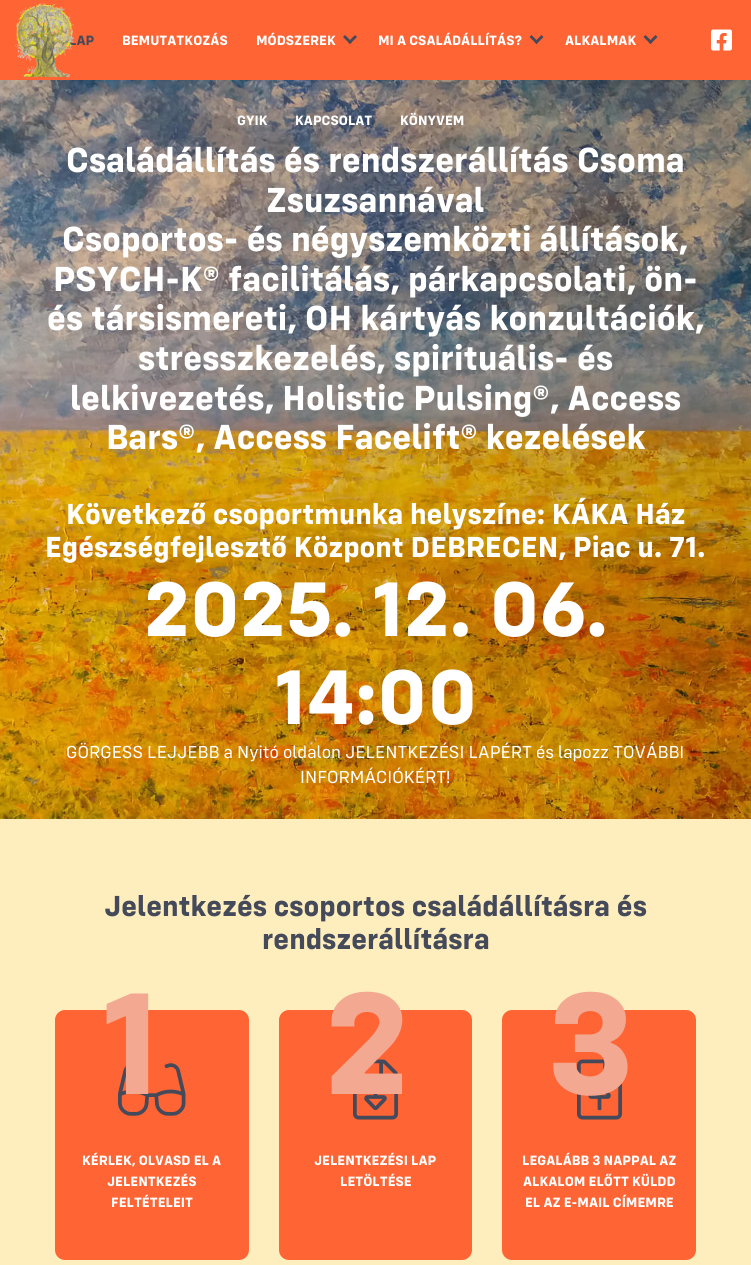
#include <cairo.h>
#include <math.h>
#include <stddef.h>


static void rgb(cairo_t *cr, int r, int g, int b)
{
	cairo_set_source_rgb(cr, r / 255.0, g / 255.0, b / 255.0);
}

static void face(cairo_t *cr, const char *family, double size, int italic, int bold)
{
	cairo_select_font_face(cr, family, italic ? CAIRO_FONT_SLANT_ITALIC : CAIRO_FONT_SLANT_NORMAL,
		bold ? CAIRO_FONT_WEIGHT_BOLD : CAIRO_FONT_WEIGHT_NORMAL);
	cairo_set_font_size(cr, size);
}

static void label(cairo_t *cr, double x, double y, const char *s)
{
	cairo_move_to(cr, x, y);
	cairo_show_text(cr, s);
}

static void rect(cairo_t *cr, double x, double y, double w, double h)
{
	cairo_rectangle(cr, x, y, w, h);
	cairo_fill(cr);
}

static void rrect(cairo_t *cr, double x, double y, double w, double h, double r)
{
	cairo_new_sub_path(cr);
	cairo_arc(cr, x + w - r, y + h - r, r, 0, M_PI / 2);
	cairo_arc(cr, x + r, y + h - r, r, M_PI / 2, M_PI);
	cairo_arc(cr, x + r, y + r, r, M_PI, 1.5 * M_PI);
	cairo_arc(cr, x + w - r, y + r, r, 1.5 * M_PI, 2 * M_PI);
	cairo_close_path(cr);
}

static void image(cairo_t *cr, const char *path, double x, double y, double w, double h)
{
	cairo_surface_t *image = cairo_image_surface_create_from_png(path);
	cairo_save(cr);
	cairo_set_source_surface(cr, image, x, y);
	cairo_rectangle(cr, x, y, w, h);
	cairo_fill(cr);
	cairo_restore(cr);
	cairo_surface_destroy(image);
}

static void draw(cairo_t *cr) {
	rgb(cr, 255, 238, 189);
	cairo_paint(cr);
	rgb(cr, 255, 100, 52);
	rect(cr, 0, 0, 751, 80);
	face(cr, "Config", 14, 0, 1);
	rgb(cr, 68, 74, 90);
	label(cr, 69, 45, "LAP");
	image(cr, "image0.png", 15, 2, 60, 76);
	rgb(cr, 255, 255, 255);
	label(cr, 122, 45, "BEMUTATKOZÁS");
	label(cr, 256, 45, "MÓDSZEREK");
	rgb(cr, 68, 74, 90);
	cairo_new_path(cr);
	cairo_move_to(cr, 345, 35);
	cairo_line_to(cr, 352, 42);
	cairo_line_to(cr, 350, 44);
	cairo_line_to(cr, 343, 37);
	cairo_close_path(cr);
	cairo_fill(cr);
	cairo_new_path(cr);
	cairo_move_to(cr, 348, 42);
	cairo_line_to(cr, 355, 35);
	cairo_line_to(cr, 357, 37);
	cairo_line_to(cr, 350, 44);
	cairo_close_path(cr);
	cairo_fill(cr);
	rgb(cr, 255, 255, 255);
	label(cr, 378, 45, "MI A CSALÁDÁLLÍTÁS?");
	rgb(cr, 68, 74, 90);
	cairo_new_path(cr);
	cairo_move_to(cr, 531.5, 35);
	cairo_line_to(cr, 538.5, 42);
	cairo_line_to(cr, 536.5, 44);
	cairo_line_to(cr, 529.5, 37);
	cairo_close_path(cr);
	cairo_fill(cr);
	cairo_new_path(cr);
	cairo_move_to(cr, 534.5, 42);
	cairo_line_to(cr, 541.5, 35);
	cairo_line_to(cr, 543.5, 37);
	cairo_line_to(cr, 536.5, 44);
	cairo_close_path(cr);
	cairo_fill(cr);
	rgb(cr, 255, 255, 255);
	label(cr, 565, 45, "ALKALMAK");
	rgb(cr, 68, 74, 90);
	cairo_new_path(cr);
	cairo_move_to(cr, 645.5, 35);
	cairo_line_to(cr, 652.5, 42);
	cairo_line_to(cr, 650.5, 44);
	cairo_line_to(cr, 643.5, 37);
	cairo_close_path(cr);
	cairo_fill(cr);
	cairo_new_path(cr);
	cairo_move_to(cr, 648.5, 42);
	cairo_line_to(cr, 655.5, 35);
	cairo_line_to(cr, 657.5, 37);
	cairo_line_to(cr, 650.5, 44);
	cairo_close_path(cr);
	cairo_fill(cr);
	image(cr, "image2.png", 0, 80, 751, 739);
	rgb(cr, 255, 255, 255);
	label(cr, 237, 125, "GYIK");
	label(cr, 295, 125, "KAPCSOLAT");
	label(cr, 400, 125, "KÖNYVEM");
	image(cr, "image1.png", 711, 29, 21, 22);
	face(cr, "Config", 36, 0, 1);
	label(cr, 66, 172, "Családállítás és rendszerállítás Csoma");
	label(cr, 266, 212, "Zsuzsannával");
	label(cr, 62, 251, "Csoportos- és négyszemközti állítások,");
	label(cr, 53, 291, "PSYCH-K® facilitálás, párkapcsolati, ön-");
	label(cr, 47, 330, "és társismereti, OH kártyás konzultációk,");
	label(cr, 138, 370, "stresszkezelés, spirituális- és");
	label(cr, 70, 410, "lelkivezetés, Holistic Pulsing®, Access");
	label(cr, 106, 449, "Bars®, Access Facelift® kezelések");
	face(cr, "Config", 30, 0, 1);
	label(cr, 66, 524, "Következő csoportmunka helyszíne: KÁKA Ház");
	label(cr, 45, 557, "Egészségfejlesztő Központ DEBRECEN, Piac u. 71.");
	face(cr, "Config", 80, 0, 1);
	label(cr, 144, 636, "2025. 12. 06.");
	label(cr, 274, 724, "14:00");
	face(cr, "Config", 18, 0, 0);
	label(cr, 66, 758, "GÖRGESS LEJJEBB a Nyitó oldalon JELENTKEZÉSI LAPÉRT és lapozz TOVÁBBI");
	label(cr, 300, 783, "INFORMÁCIÓKÉRT!");
	face(cr, "Config", 30, 0, 1);
	rgb(cr, 68, 74, 90);
	label(cr, 104, 916, "Jelentkezés csoportos családállításra és");
	label(cr, 262, 949, "rendszerállításra");
	rgb(cr, 255, 100, 52);
	rrect(cr, 55, 1010, 194, 250, 10);
	cairo_fill(cr);
	image(cr, "image3.png", 118, 1063, 68, 53);
	face(cr, "Config", 150, 0, 1);
	rgb(cr, 243, 168, 145);
	label(cr, 100, 1094, "1");
	face(cr, "Config", 14, 0, 1);
	rgb(cr, 255, 255, 255);
	label(cr, 82, 1165, "KÉRLEK, OLVASD EL A");
	label(cr, 107, 1186, "JELENTKEZÉS");
	label(cr, 111, 1207, "FELTÉTELEIT");
	rgb(cr, 255, 100, 52);
	rrect(cr, 279, 1010, 193, 250, 10);
	cairo_fill(cr);
	image(cr, "image4.png", 353, 1059, 45, 61);
	face(cr, "Config", 150, 0, 1);
	rgb(cr, 243, 168, 145);
	label(cr, 324, 1094, "2");
	face(cr, "Config", 14, 0, 1);
	rgb(cr, 255, 255, 255);
	label(cr, 314, 1165, "JELENTKEZÉSI LAP");
	label(cr, 340, 1186, "LETÖLTÉSE");
	rgb(cr, 255, 100, 52);
	rrect(cr, 502, 1010, 194, 250, 10);
	cairo_fill(cr);
	image(cr, "image5.png", 577, 1059, 45, 61);
	face(cr, "Config", 150, 0, 1);
	rgb(cr, 243, 168, 145);
	label(cr, 547, 1094, "3");
	face(cr, "Config", 14, 0, 1);
	rgb(cr, 255, 255, 255);
	label(cr, 522, 1165, "LEGALÁBB 3 NAPPAL AZ");
	label(cr, 523, 1186, "ALKALOM ELŐTT KÜLDD");
	label(cr, 525, 1207, "EL AZ E-MAIL CÍMEMRE");
}

int main(void) {
	cairo_surface_t *surface = cairo_image_surface_create(CAIRO_FORMAT_RGB24, 751, 1265);
	cairo_t *cr = cairo_create(surface);
	cairo_font_options_t *options = cairo_font_options_create();
	cairo_font_options_set_hint_metrics(options, CAIRO_HINT_METRICS_OFF);
	cairo_font_options_set_hint_style(options, CAIRO_HINT_STYLE_NONE);
	cairo_set_font_options(cr, options);
	cairo_set_miter_limit(cr, 4);
	draw(cr);
	cairo_surface_write_to_png(surface, "render.png");
	cairo_font_options_destroy(options);
	cairo_destroy(cr);
	cairo_surface_destroy(surface);
	return 0;
}
